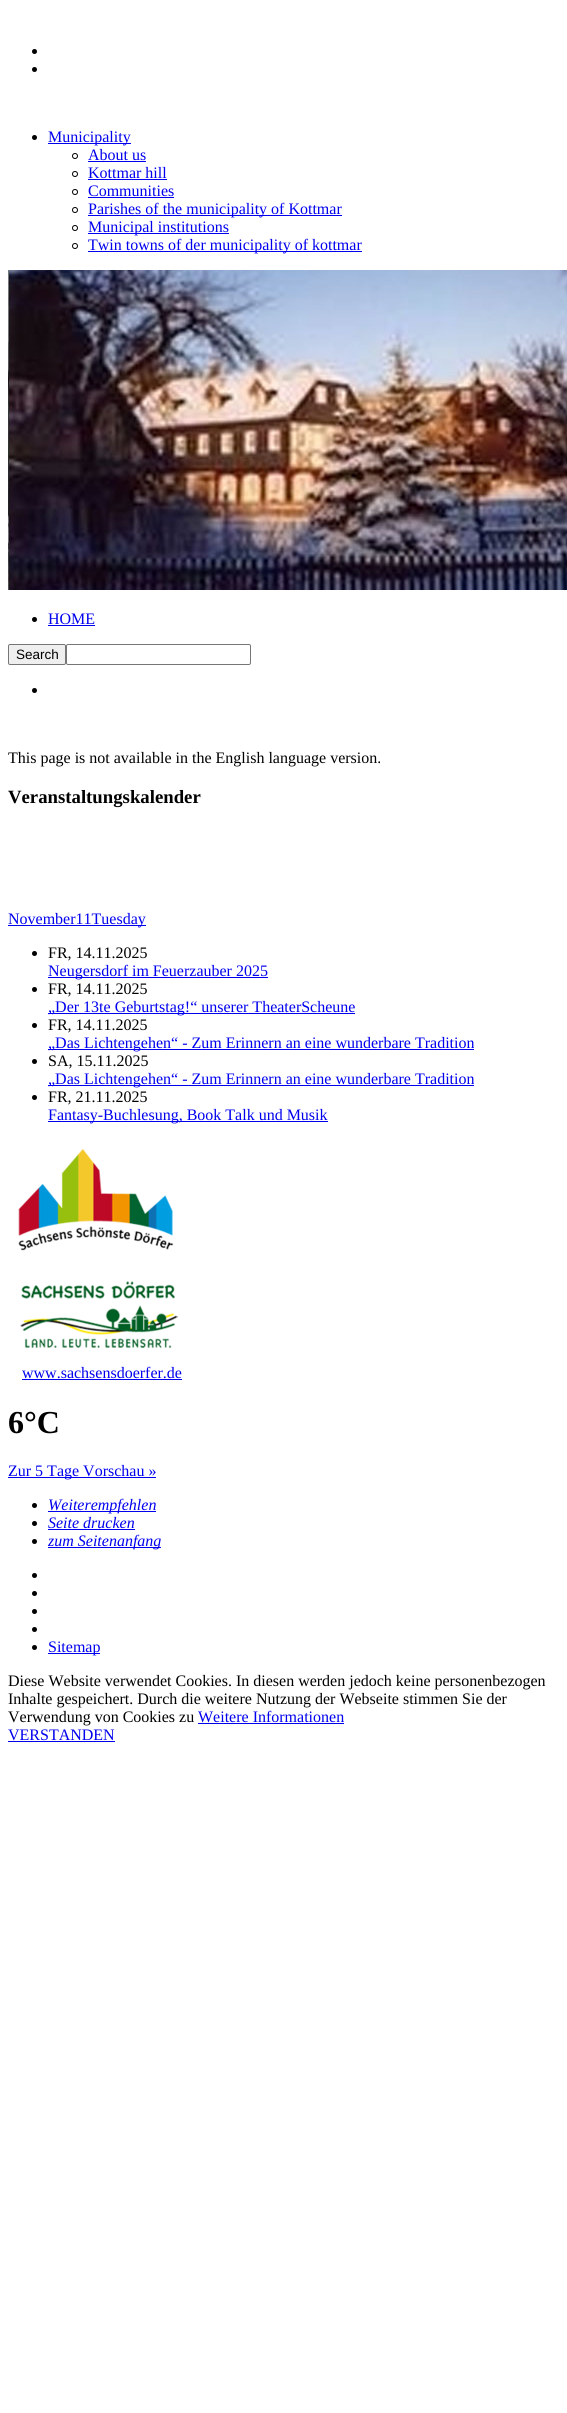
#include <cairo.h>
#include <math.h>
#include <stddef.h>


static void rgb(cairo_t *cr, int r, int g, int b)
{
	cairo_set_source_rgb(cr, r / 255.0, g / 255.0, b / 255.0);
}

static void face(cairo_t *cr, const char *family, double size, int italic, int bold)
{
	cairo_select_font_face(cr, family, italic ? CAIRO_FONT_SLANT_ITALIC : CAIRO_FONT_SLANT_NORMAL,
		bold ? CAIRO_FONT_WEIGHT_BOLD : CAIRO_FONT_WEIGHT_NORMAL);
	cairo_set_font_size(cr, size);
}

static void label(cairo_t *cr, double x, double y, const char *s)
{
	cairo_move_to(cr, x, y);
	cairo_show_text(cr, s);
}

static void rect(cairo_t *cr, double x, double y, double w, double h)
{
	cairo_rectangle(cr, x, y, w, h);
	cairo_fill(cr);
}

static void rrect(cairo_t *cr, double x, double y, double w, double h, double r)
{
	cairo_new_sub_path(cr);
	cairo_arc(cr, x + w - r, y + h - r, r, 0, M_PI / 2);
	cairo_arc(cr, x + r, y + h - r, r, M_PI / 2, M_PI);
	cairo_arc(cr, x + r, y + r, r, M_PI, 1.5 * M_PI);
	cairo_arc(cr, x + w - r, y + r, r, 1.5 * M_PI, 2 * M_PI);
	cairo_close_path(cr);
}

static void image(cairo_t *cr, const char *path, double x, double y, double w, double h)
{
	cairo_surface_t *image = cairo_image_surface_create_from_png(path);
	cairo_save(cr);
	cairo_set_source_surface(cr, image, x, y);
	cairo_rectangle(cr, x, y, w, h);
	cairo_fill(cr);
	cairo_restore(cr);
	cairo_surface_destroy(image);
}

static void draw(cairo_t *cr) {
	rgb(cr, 255, 255, 255);
	cairo_paint(cr);
	rgb(cr, 0, 0, 0);
	cairo_arc(cr, 34.5, 51.5, 2.5, 0, 2 * M_PI);
	cairo_fill(cr);
	cairo_arc(cr, 34.5, 69.5, 2.5, 0, 2 * M_PI);
	cairo_fill(cr);
	cairo_arc(cr, 34.5, 137.5, 2.5, 0, 2 * M_PI);
	cairo_fill(cr);
	rgb(cr, 0, 0, 238);
	rect(cr, 48, 143, 83, 1);
	face(cr, "Liberation Serif", 16, 0, 0);
	label(cr, 48, 142, "Municipality");
	cairo_new_path(cr);
	cairo_arc(cr, 75, 156, 2.5, 0, 2 * M_PI);
	rgb(cr, 0, 0, 0);
	cairo_set_line_width(cr, 1);
	cairo_stroke(cr);
	rgb(cr, 0, 0, 238);
	label(cr, 88, 160, "About us");
	rect(cr, 88, 161, 58, 1);
	cairo_new_path(cr);
	cairo_arc(cr, 75, 174, 2.5, 0, 2 * M_PI);
	rgb(cr, 0, 0, 0);
	cairo_stroke(cr);
	rgb(cr, 0, 0, 238);
	label(cr, 88, 178, "Kottmar hill");
	rect(cr, 88, 179, 79, 1);
	cairo_new_path(cr);
	cairo_arc(cr, 75, 192, 2.5, 0, 2 * M_PI);
	rgb(cr, 0, 0, 0);
	cairo_stroke(cr);
	rgb(cr, 0, 0, 238);
	label(cr, 88, 196, "Communities");
	rect(cr, 88, 197, 86, 1);
	cairo_new_path(cr);
	cairo_arc(cr, 75, 210, 2.5, 0, 2 * M_PI);
	rgb(cr, 0, 0, 0);
	cairo_stroke(cr);
	rgb(cr, 0, 0, 238);
	rect(cr, 88, 215, 254, 1);
	label(cr, 88, 214, "Parishes of the municipality of Kottmar");
	cairo_new_path(cr);
	cairo_arc(cr, 75, 228, 2.5, 0, 2 * M_PI);
	rgb(cr, 0, 0, 0);
	cairo_stroke(cr);
	rgb(cr, 0, 0, 238);
	rect(cr, 88, 233, 141, 1);
	label(cr, 88, 232, "Municipal institutions");
	cairo_new_path(cr);
	cairo_arc(cr, 75, 246, 2.5, 0, 2 * M_PI);
	rgb(cr, 0, 0, 0);
	cairo_stroke(cr);
	rgb(cr, 0, 0, 238);
	rect(cr, 88, 251, 274, 1);
	label(cr, 88, 250, "Twin towns of der municipality of kottmar");
	image(cr, "image0.png", 8, 270, 559, 320);
	rgb(cr, 0, 0, 0);
	cairo_arc(cr, 34.5, 619.5, 2.5, 0, 2 * M_PI);
	cairo_fill(cr);
	rgb(cr, 0, 0, 238);
	label(cr, 48, 624, "HOME");
	rect(cr, 48, 625, 47, 1);
	rgb(cr, 239, 239, 239);
	rrect(cr, 8.5, 644.5, 57, 20, 1.5);
	cairo_fill_preserve(cr);
	rgb(cr, 118, 118, 118);
	cairo_stroke(cr);
	face(cr, "Liberation Sans", 13.5, 0, 0);
	rgb(cr, 0, 0, 0);
	label(cr, 16, 659, "Search");
	rrect(cr, 66.5, 644.5, 184, 20, 1.5);
	rgb(cr, 118, 118, 118);
	cairo_stroke(cr);
	rgb(cr, 0, 0, 0);
	cairo_arc(cr, 34.5, 690.5, 2.5, 0, 2 * M_PI);
	cairo_fill(cr);
	face(cr, "Liberation Serif", 16, 0, 0);
	label(cr, 8, 763, "This page is not available in the English language version.");
	face(cr, "Liberation Serif", 18.75, 0, 1);
	label(cr, 8, 803, "Veranstaltungskalender");
	rgb(cr, 0, 0, 238);
	rect(cr, 8, 925, 138, 1);
	face(cr, "Liberation Serif", 16, 0, 0);
	label(cr, 8, 924, "November11Tuesday");
	rgb(cr, 0, 0, 0);
	cairo_new_path(cr);
	cairo_arc(cr, 34.5, 953.5, 2.5, 0, 2 * M_PI);
	cairo_fill(cr);
	label(cr, 48, 958, "FR, 14.11.2025");
	rgb(cr, 0, 0, 238);
	rect(cr, 48, 977, 220, 1);
	label(cr, 48, 976, "Neugersdorf im Feuerzauber 2025");
	rgb(cr, 0, 0, 0);
	cairo_new_path(cr);
	cairo_arc(cr, 34.5, 989.5, 2.5, 0, 2 * M_PI);
	cairo_fill(cr);
	label(cr, 48, 994, "FR, 14.11.2025");
	rgb(cr, 0, 0, 238);
	rect(cr, 48, 1013, 307, 1);
	label(cr, 48, 1012, "„Der 13te Geburtstag!“ unserer TheaterScheune");
	rgb(cr, 0, 0, 0);
	cairo_new_path(cr);
	cairo_arc(cr, 34.5, 1025.5, 2.5, 0, 2 * M_PI);
	cairo_fill(cr);
	label(cr, 48, 1030, "FR, 14.11.2025");
	rgb(cr, 0, 0, 238);
	rect(cr, 48, 1049, 426, 1);
	label(cr, 48, 1048, "„Das Lichtengehen“ - Zum Erinnern an eine wunderbare Tradition");
	rgb(cr, 0, 0, 0);
	cairo_new_path(cr);
	cairo_arc(cr, 34.5, 1061.5, 2.5, 0, 2 * M_PI);
	cairo_fill(cr);
	label(cr, 48, 1066, "SA, 15.11.2025");
	rgb(cr, 0, 0, 238);
	rect(cr, 48, 1085, 426, 1);
	label(cr, 48, 1084, "„Das Lichtengehen“ - Zum Erinnern an eine wunderbare Tradition");
	rgb(cr, 0, 0, 0);
	cairo_new_path(cr);
	cairo_arc(cr, 34.5, 1097.5, 2.5, 0, 2 * M_PI);
	cairo_fill(cr);
	label(cr, 48, 1102, "FR, 21.11.2025");
	rgb(cr, 0, 0, 238);
	rect(cr, 48, 1121, 280, 1);
	label(cr, 48, 1120, "Fantasy-Buchlesung, Book Talk und Musik");
	image(cr, "image1.png", 18, 1148, 156, 103);
	image(cr, "image2.png", 20, 1281, 158, 67);
	label(cr, 22, 1378, "www.sachsensdoerfer.de");
	rect(cr, 22, 1379, 160, 1);
	face(cr, "Liberation Serif", 32, 0, 1);
	rgb(cr, 0, 0, 0);
	label(cr, 8, 1433, "6°C");
	rgb(cr, 0, 0, 238);
	rect(cr, 8, 1477, 148, 1);
	face(cr, "Liberation Serif", 16, 0, 0);
	label(cr, 8, 1476, "Zur 5 Tage Vorschau »");
	rgb(cr, 0, 0, 0);
	cairo_new_path(cr);
	cairo_arc(cr, 34.5, 1505.5, 2.5, 0, 2 * M_PI);
	cairo_fill(cr);
	rgb(cr, 0, 0, 238);
	rect(cr, 48, 1511, 108, 1);
	face(cr, "Liberation Serif", 16, 1, 0);
	label(cr, 48, 1510, "Weiterempfehlen");
	rgb(cr, 0, 0, 0);
	cairo_new_path(cr);
	cairo_arc(cr, 34.5, 1523.5, 2.5, 0, 2 * M_PI);
	cairo_fill(cr);
	rgb(cr, 0, 0, 238);
	label(cr, 48, 1528, "Seite drucken");
	rect(cr, 48, 1529, 87, 1);
	rgb(cr, 0, 0, 0);
	cairo_new_path(cr);
	cairo_arc(cr, 34.5, 1541.5, 2.5, 0, 2 * M_PI);
	cairo_fill(cr);
	rgb(cr, 0, 0, 238);
	rect(cr, 48, 1547, 113, 1);
	label(cr, 48, 1546, "zum Seitenanfang");
	rgb(cr, 0, 0, 0);
	cairo_new_path(cr);
	cairo_arc(cr, 34.5, 1575.5, 2.5, 0, 2 * M_PI);
	cairo_fill(cr);
	cairo_arc(cr, 34.5, 1593.5, 2.5, 0, 2 * M_PI);
	cairo_fill(cr);
	cairo_arc(cr, 34.5, 1611.5, 2.5, 0, 2 * M_PI);
	cairo_fill(cr);
	cairo_arc(cr, 34.5, 1629.5, 2.5, 0, 2 * M_PI);
	cairo_fill(cr);
	cairo_arc(cr, 34.5, 1647.5, 2.5, 0, 2 * M_PI);
	cairo_fill(cr);
	rgb(cr, 0, 0, 238);
	rect(cr, 48, 1653, 52, 1);
	face(cr, "Liberation Serif", 16, 0, 0);
	label(cr, 48, 1652, "Sitemap");
	rgb(cr, 0, 0, 0);
	label(cr, 8, 1686, "Diese Website verwendet Cookies. In diesen werden jedoch keine personenbezogen");
	label(cr, 8, 1704, "Inhalte gespeichert. Durch die weitere Nutzung der Webseite stimmen Sie der");
	label(cr, 8, 1722, "Verwendung von Cookies zu");
	rgb(cr, 0, 0, 238);
	label(cr, 198, 1722, "Weitere Informationen");
	rect(cr, 198, 1723, 146, 1);
	label(cr, 8, 1740, "VERSTANDEN");
	rect(cr, 8, 1741, 107, 1);
}

int main(void) {
	cairo_surface_t *surface = cairo_image_surface_create(CAIRO_FORMAT_RGB24, 567, 2413);
	cairo_t *cr = cairo_create(surface);
	cairo_font_options_t *options = cairo_font_options_create();
	cairo_font_options_set_hint_metrics(options, CAIRO_HINT_METRICS_OFF);
	cairo_font_options_set_hint_style(options, CAIRO_HINT_STYLE_NONE);
	cairo_set_font_options(cr, options);
	cairo_set_miter_limit(cr, 4);
	draw(cr);
	cairo_surface_write_to_png(surface, "render.png");
	cairo_font_options_destroy(options);
	cairo_destroy(cr);
	cairo_surface_destroy(surface);
	return 0;
}
